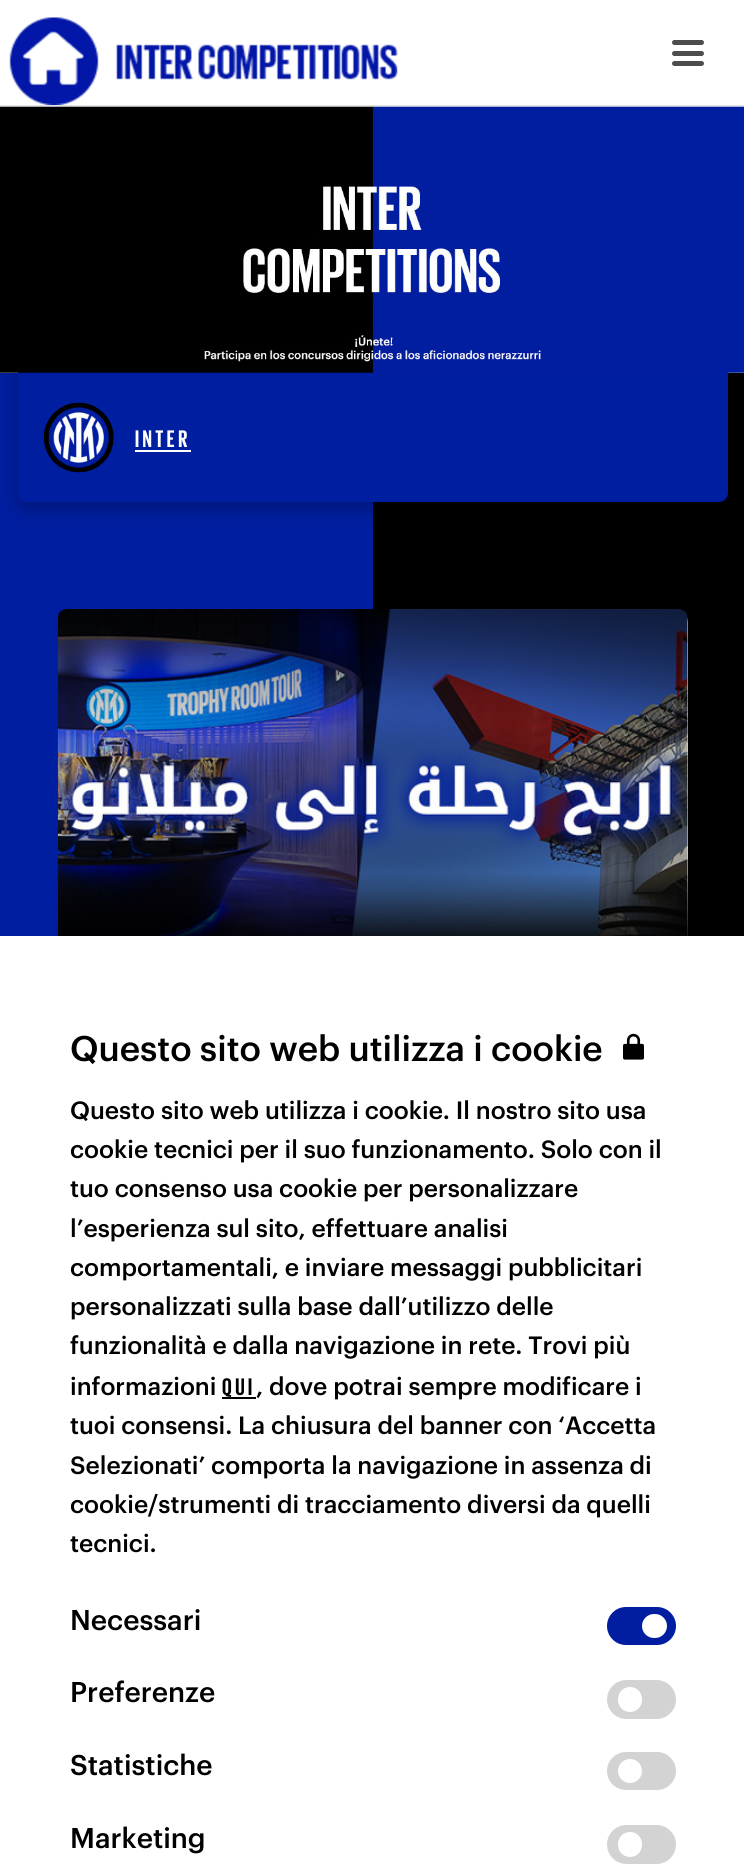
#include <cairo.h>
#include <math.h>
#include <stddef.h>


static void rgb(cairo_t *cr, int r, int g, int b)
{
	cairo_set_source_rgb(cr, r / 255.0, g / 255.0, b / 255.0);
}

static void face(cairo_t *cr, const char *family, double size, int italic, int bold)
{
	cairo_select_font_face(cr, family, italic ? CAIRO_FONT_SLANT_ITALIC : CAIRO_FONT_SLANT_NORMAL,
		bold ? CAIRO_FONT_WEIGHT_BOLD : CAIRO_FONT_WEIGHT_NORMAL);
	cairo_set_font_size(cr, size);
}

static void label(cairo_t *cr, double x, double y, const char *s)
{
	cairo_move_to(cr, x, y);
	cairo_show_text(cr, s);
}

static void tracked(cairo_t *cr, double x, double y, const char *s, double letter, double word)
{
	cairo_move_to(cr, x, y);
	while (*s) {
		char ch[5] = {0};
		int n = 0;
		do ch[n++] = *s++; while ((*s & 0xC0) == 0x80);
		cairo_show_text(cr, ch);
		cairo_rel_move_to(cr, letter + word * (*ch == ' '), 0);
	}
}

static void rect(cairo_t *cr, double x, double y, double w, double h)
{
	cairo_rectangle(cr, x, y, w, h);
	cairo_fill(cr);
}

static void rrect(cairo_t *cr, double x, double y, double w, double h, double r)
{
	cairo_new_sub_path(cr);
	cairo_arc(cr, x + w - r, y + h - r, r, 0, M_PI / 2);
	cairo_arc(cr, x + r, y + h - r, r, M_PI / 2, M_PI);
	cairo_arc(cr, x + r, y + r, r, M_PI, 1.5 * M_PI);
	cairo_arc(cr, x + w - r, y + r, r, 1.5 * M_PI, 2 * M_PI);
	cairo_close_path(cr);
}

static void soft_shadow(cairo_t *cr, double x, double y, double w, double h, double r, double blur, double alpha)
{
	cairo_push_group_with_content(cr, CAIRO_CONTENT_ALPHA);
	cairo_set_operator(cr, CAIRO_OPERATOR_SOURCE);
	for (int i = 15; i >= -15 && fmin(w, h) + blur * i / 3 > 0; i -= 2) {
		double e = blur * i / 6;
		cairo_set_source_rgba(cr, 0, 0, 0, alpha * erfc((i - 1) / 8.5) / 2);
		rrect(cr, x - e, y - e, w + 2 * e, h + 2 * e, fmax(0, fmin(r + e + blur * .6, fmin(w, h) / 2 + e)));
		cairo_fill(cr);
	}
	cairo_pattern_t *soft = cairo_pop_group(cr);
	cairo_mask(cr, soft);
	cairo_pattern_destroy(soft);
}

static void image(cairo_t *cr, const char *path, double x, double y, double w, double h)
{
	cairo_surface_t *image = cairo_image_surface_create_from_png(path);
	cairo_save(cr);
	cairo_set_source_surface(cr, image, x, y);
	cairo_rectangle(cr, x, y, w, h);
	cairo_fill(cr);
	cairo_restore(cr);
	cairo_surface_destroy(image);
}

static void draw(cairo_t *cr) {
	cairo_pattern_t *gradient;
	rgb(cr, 255, 255, 255);
	cairo_paint(cr);
	rgb(cr, 229, 229, 229);
	rect(cr, 0, 105, 744, 2);
	image(cr, "image0.png", 9, 17, 389, 88);
	rgb(cr, 77, 77, 77);
	rrect(cr, 672, 61, 32, 5, 2.5);
	cairo_fill(cr);
	rrect(cr, 672, 51, 32, 5, 2.5);
	cairo_fill(cr);
	rrect(cr, 672, 40, 32, 5, 2.5);
	cairo_fill(cr);
	rgb(cr, 0, 30, 160);
	rect(cr, 0, 373, 373, 563);
	rgb(cr, 0, 0, 0);
	rect(cr, 373, 373, 371, 563);
	rgb(cr, 0, 0, 0);
	soft_shadow(cr, 18, 354, 710, 155, 9, 9.5, 0.25);
	rgb(cr, 0, 30, 160);
	rrect(cr, 18, 347, 710, 155, 9);
	cairo_fill(cr);
	image(cr, "image1.png", 0, 106, 744, 267);
	image(cr, "image2.png", 43, 402, 71, 71);
	face(cr, "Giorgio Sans", 24.5, 0, 1);
	rgb(cr, 255, 255, 255);
	tracked(cr, 135, 447, "INTER", 3.5, 0);
	rect(cr, 135, 450, 56, 2);
	rrect(cr, 58, 609, 630, 721, 14);
	cairo_fill(cr);
	image(cr, "image3.png", 57, 609, 631, 327);
	gradient = cairo_pattern_create_linear(373, 977, 373, 872);
	cairo_pattern_add_color_stop_rgba(gradient, 0.3, 0, 0, 0, 0.9);
	cairo_pattern_add_color_stop_rgba(gradient, 1, 0, 0, 0, 0);
	cairo_set_source(cr, gradient);
	cairo_pattern_destroy(gradient);
	rect(cr, 58, 874, 630, 62);
	face(cr, "Graphik Medium", 35, 0, 0);
	rgb(cr, 0, 0, 0);
	label(cr, 70, 1061, "Questo sito web utilizza i cookie");
	image(cr, "image4.png", 623, 1033, 21, 27);
	face(cr, "Graphik Medium", 24.5, 0, 0);
	label(cr, 70, 1119, "Questo sito web utilizza i cookie. Il nostro sito usa");
	label(cr, 70, 1158, "cookie tecnici per il suo funzionamento. Solo con il");
	label(cr, 70, 1197, "tuo consenso usa cookie per personalizzare");
	label(cr, 70, 1237, "l’esperienza sul sito, effettuare analisi");
	label(cr, 70, 1276, "comportamentali, e inviare messaggi pubblicitari");
	label(cr, 70, 1315, "personalizzati sulla base dall’utilizzo delle");
	label(cr, 70, 1354, "funzionalità e dalla navigazione in rete. Trovi più");
	label(cr, 70, 1395, "informazioni");
	rect(cr, 222, 1397, 34, 2);
	face(cr, "Giorgio Sans", 24.5, 0, 1);
	tracked(cr, 222, 1395, "QUI", 3.5, 0);
	face(cr, "Graphik Medium", 24.5, 0, 0);
	label(cr, 256, 1395, ", dove potrai sempre modificare i");
	label(cr, 70, 1434, "tuoi consensi. La chiusura del banner con ‘Accetta");
	label(cr, 70, 1474, "Selezionati’ comporta la navigazione in assenza di");
	label(cr, 70, 1513, "cookie/strumenti di tracciamento diversi da quelli");
	label(cr, 70, 1552, "tecnici.");
	face(cr, "Graphik Medium", 28, 0, 0);
	label(cr, 70, 1630, "Necessari");
	rgb(cr, 1, 30, 160);
	rrect(cr, 607, 1607, 69, 38, 19);
	cairo_fill(cr);
	rgb(cr, 255, 255, 255);
	rrect(cr, 642, 1614, 25, 24, 12);
	cairo_fill(cr);
	rgb(cr, 0, 0, 0);
	label(cr, 70, 1702, "Preferenze");
	rgb(cr, 211, 211, 211);
	rrect(cr, 607, 1680, 69, 39, 19.5);
	cairo_fill(cr);
	rgb(cr, 255, 255, 255);
	rrect(cr, 618, 1687, 24, 25, 12);
	cairo_fill(cr);
	rgb(cr, 0, 0, 0);
	label(cr, 70, 1775, "Statistiche");
	rgb(cr, 211, 211, 211);
	rrect(cr, 607, 1752, 69, 38, 19);
	cairo_fill(cr);
	rgb(cr, 255, 255, 255);
	cairo_arc(cr, 630, 1771, 12, 0, 2 * M_PI);
	cairo_fill(cr);
	rgb(cr, 0, 0, 0);
	label(cr, 70, 1848, "Marketing");
	rgb(cr, 211, 211, 211);
	rrect(cr, 607, 1825, 69, 39, 19.5);
	cairo_fill(cr);
	rgb(cr, 255, 255, 255);
	rrect(cr, 618, 1832, 24, 25, 12);
	cairo_fill(cr);
}

int main(void) {
	cairo_surface_t *surface = cairo_image_surface_create(CAIRO_FORMAT_RGB24, 744, 1870);
	cairo_t *cr = cairo_create(surface);
	cairo_font_options_t *options = cairo_font_options_create();
	cairo_font_options_set_hint_metrics(options, CAIRO_HINT_METRICS_OFF);
	cairo_font_options_set_hint_style(options, CAIRO_HINT_STYLE_NONE);
	cairo_set_font_options(cr, options);
	cairo_set_miter_limit(cr, 4);
	draw(cr);
	cairo_surface_write_to_png(surface, "render.png");
	cairo_font_options_destroy(options);
	cairo_destroy(cr);
	cairo_surface_destroy(surface);
	return 0;
}
